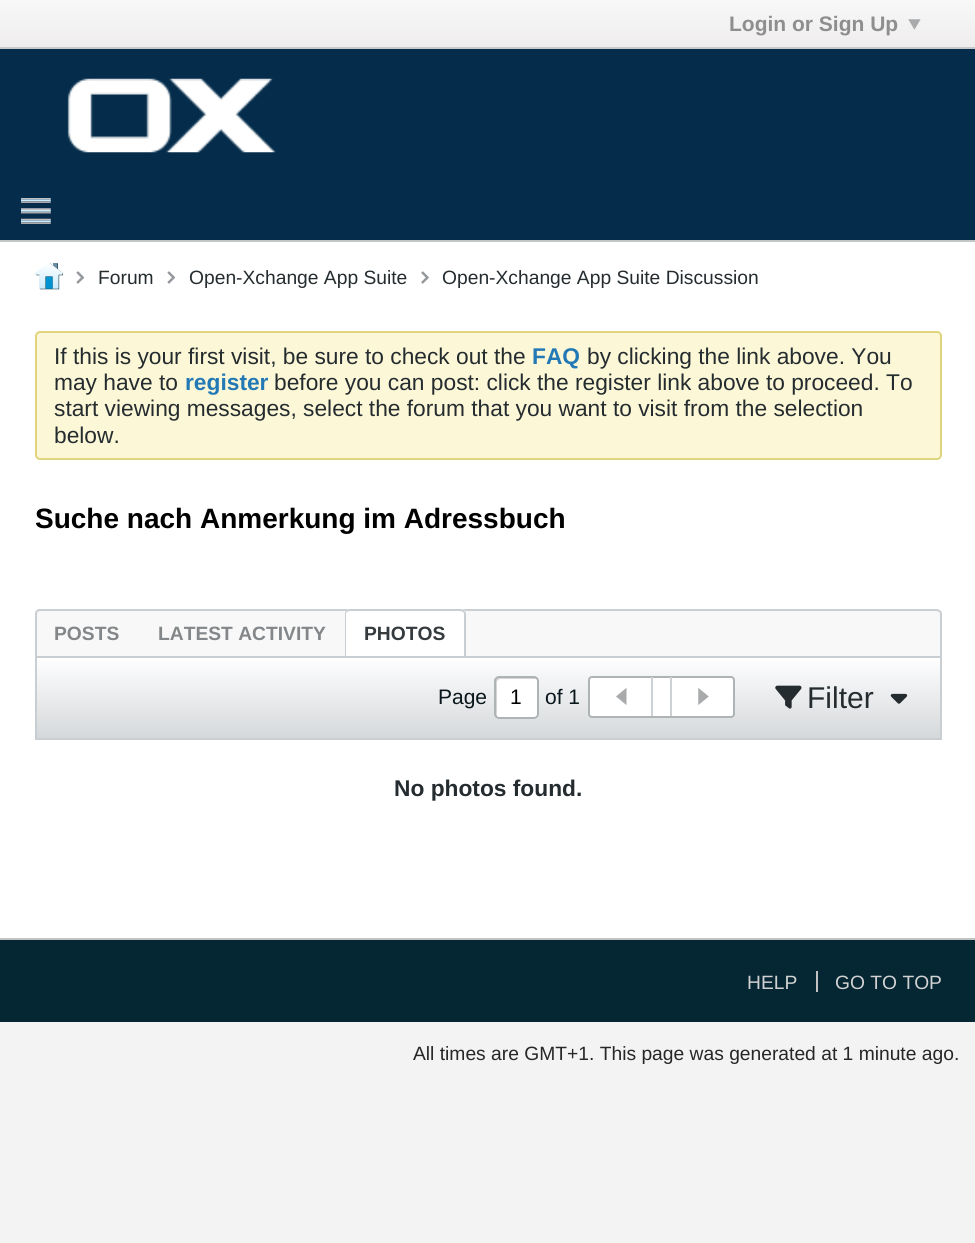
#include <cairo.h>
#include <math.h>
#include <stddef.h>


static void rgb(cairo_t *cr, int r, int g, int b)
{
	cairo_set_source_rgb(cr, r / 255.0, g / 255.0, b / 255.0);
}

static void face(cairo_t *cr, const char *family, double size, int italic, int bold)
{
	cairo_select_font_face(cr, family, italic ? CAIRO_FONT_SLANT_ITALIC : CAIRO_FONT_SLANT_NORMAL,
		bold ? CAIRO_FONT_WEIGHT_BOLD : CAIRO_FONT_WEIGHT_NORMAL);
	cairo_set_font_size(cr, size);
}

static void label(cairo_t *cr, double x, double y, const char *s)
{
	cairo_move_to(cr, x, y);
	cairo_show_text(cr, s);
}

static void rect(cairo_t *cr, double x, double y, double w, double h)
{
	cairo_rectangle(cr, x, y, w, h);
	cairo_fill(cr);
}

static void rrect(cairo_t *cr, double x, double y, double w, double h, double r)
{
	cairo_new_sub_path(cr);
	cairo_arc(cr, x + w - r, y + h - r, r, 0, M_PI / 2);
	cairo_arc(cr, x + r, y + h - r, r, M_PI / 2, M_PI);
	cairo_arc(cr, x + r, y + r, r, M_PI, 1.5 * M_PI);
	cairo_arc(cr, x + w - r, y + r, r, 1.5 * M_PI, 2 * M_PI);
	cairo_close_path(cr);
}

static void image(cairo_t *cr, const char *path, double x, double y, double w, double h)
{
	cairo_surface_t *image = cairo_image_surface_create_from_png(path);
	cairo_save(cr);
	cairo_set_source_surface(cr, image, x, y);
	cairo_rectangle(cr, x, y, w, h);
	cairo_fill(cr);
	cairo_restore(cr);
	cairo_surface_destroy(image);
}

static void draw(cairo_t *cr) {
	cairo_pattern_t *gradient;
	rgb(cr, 243, 243, 243);
	cairo_paint(cr);
	gradient = cairo_pattern_create_linear(488, 0, 488, 47);
	cairo_pattern_add_color_stop_rgba(gradient, 0, 0.973, 0.973, 0.973, 1);
	cairo_pattern_add_color_stop_rgba(gradient, 1, 0.937, 0.929, 0.933, 1);
	cairo_set_source(cr, gradient);
	cairo_pattern_destroy(gradient);
	rect(cr, 0, 0, 975, 47);
	rgb(cr, 199, 200, 201);
	rect(cr, 0, 47, 975, 2);
	face(cr, "Liberation Sans", 21, 0, 1);
	rgb(cr, 142, 142, 142);
	label(cr, 729, 31, "Login or Sign Up");
	image(cr, "image0.png", 908, 19, 13, 11);
	rgb(cr, 5, 45, 75);
	rect(cr, 0, 49, 975, 191);
	image(cr, "image1.png", 67, 78, 209, 75);
	rgb(cr, 196, 199, 200);
	rect(cr, 0, 240, 975, 2);
	image(cr, "image2.png", 21, 198, 30, 26);
	rgb(cr, 255, 255, 255);
	rect(cr, 0, 242, 975, 696);
	image(cr, "image3.png", 35, 263, 28, 27);
	image(cr, "image4.png", 76, 271, 8, 13);
	face(cr, "Liberation Sans", 19.25, 0, 0);
	rgb(cr, 37, 44, 47);
	label(cr, 98, 284, "Forum");
	image(cr, "image4.png", 167, 271, 8, 13);
	label(cr, 189, 284, "Open-Xchange App Suite");
	image(cr, "image5.png", 421, 271, 8, 13);
	label(cr, 442, 284, "Open-Xchange App Suite Discussion");
	rgb(cr, 252, 247, 215);
	rrect(cr, 36, 332, 905, 127, 4);
	cairo_fill_preserve(cr);
	rgb(cr, 225, 212, 126);
	cairo_stroke(cr);
	face(cr, "Liberation Sans", 22.75, 0, 0);
	rgb(cr, 37, 44, 47);
	label(cr, 54, 364, "If this is your first visit, be sure to check out the");
	face(cr, "Liberation Sans", 22.75, 0, 1);
	rgb(cr, 35, 121, 181);
	label(cr, 532, 364, "FAQ");
	face(cr, "Liberation Sans", 22.75, 0, 0);
	rgb(cr, 37, 44, 47);
	label(cr, 587, 364, "by clicking the link above. You");
	label(cr, 54, 390, "may have to");
	face(cr, "Liberation Sans", 22.75, 0, 1);
	rgb(cr, 35, 121, 181);
	label(cr, 185, 390, "register");
	face(cr, "Liberation Sans", 22.75, 0, 0);
	rgb(cr, 37, 44, 47);
	label(cr, 274, 390, "before you can post: click the register link above to proceed. To");
	label(cr, 54, 416, "start viewing messages, select the forum that you want to visit from the selection");
	label(cr, 54, 443, "below.");
	face(cr, "Liberation Sans", 28, 0, 1);
	rgb(cr, 0, 0, 0);
	label(cr, 35, 528, "Suche nach Anmerkung im Adressbuch");
	rgb(cr, 248, 248, 248);
	cairo_new_path(cr);
	cairo_move_to(cr, 40, 609);
	cairo_line_to(cr, 937, 609);
	cairo_curve_to(cr, 940, 609, 942, 611, 942, 614);
	cairo_line_to(cr, 942, 656);
	cairo_line_to(cr, 35, 656);
	cairo_line_to(cr, 35, 614);
	cairo_curve_to(cr, 35, 611, 37, 609, 40, 609);
	cairo_close_path(cr);
	cairo_fill(cr);
	rgb(cr, 201, 206, 210);
	cairo_set_fill_rule(cr, CAIRO_FILL_RULE_EVEN_ODD);
	cairo_new_path(cr);
	cairo_move_to(cr, 40, 609);
	cairo_line_to(cr, 936, 609);
	cairo_curve_to(cr, 939, 609, 942, 611, 942, 614);
	cairo_line_to(cr, 942, 656);
	cairo_line_to(cr, 35, 656);
	cairo_line_to(cr, 35, 614);
	cairo_curve_to(cr, 35, 611, 37, 609, 40, 609);
	cairo_close_path(cr);
	cairo_move_to(cr, 40, 611);
	cairo_line_to(cr, 936, 611);
	cairo_curve_to(cr, 938, 611, 940, 612, 940, 614);
	cairo_line_to(cr, 940, 656);
	cairo_line_to(cr, 37, 656);
	cairo_line_to(cr, 37, 614);
	cairo_curve_to(cr, 37, 612, 38, 611, 40, 611);
	cairo_close_path(cr);
	cairo_fill(cr);
	face(cr, "Liberation Sans", 19.25, 0, 1);
	rgb(cr, 131, 135, 137);
	label(cr, 54, 640, "POSTS");
	label(cr, 158, 640, "LATEST ACTIVITY");
	rgb(cr, 255, 255, 255);
	cairo_new_path(cr);
	cairo_move_to(cr, 350, 609);
	cairo_line_to(cr, 461, 609);
	cairo_curve_to(cr, 464, 609, 466, 611, 466, 614);
	cairo_line_to(cr, 466, 656);
	cairo_line_to(cr, 345, 656);
	cairo_line_to(cr, 345, 614);
	cairo_curve_to(cr, 345, 611, 347, 609, 350, 609);
	cairo_close_path(cr);
	cairo_fill(cr);
	rgb(cr, 201, 206, 210);
	cairo_new_path(cr);
	cairo_move_to(cr, 350, 609);
	cairo_line_to(cr, 460, 609);
	cairo_curve_to(cr, 463, 609, 466, 611, 466, 614);
	cairo_line_to(cr, 466, 656);
	cairo_line_to(cr, 345, 656);
	cairo_line_to(cr, 345, 614);
	cairo_curve_to(cr, 345, 611, 347, 609, 350, 609);
	cairo_close_path(cr);
	cairo_move_to(cr, 350, 611);
	cairo_line_to(cr, 460, 611);
	cairo_curve_to(cr, 462, 611, 464, 612, 464, 614);
	cairo_line_to(cr, 464, 656);
	cairo_line_to(cr, 346, 656);
	cairo_line_to(cr, 346, 614);
	cairo_curve_to(cr, 346, 612, 348, 611, 350, 611);
	cairo_close_path(cr);
	cairo_fill(cr);
	rgb(cr, 52, 58, 61);
	label(cr, 364, 640, "PHOTOS");
	gradient = cairo_pattern_create_linear(488, 658, 488, 739);
	cairo_pattern_add_color_stop_rgba(gradient, 0, 0.996, 0.996, 1, 1);
	cairo_pattern_add_color_stop_rgba(gradient, 1, 0.835, 0.847, 0.855, 1);
	cairo_set_source(cr, gradient);
	cairo_pattern_destroy(gradient);
	rect(cr, 37, 661, 903, 77);
	cairo_rectangle(cr, 36, 657, 905, 82);
	rgb(cr, 201, 206, 210);
	cairo_stroke(cr);
	face(cr, "Liberation Sans", 21, 0, 0);
	rgb(cr, 9, 22, 27);
	label(cr, 438, 704, "Page");
	rgb(cr, 255, 255, 255);
	rrect(cr, 494, 676, 45, 43, 5);
	cairo_fill(cr);
	rgb(cr, 213, 213, 213);
	cairo_set_fill_rule(cr, CAIRO_FILL_RULE_WINDING);
	cairo_new_path(cr);
	cairo_move_to(cr, 500, 679);
	cairo_line_to(cr, 537, 679);
	cairo_curve_to(cr, 536, 678, 535, 677, 533, 677);
	cairo_line_to(cr, 499, 677);
	cairo_curve_to(cr, 497, 677, 495, 679, 495, 681);
	cairo_line_to(cr, 495, 714);
	cairo_curve_to(cr, 495, 716, 496, 717, 498, 718);
	cairo_line_to(cr, 497, 716);
	cairo_line_to(cr, 497, 682);
	cairo_curve_to(cr, 497, 681, 499, 679, 500, 679);
	cairo_close_path(cr);
	cairo_fill(cr);
	rrect(cr, 495, 677, 43, 41, 4);
	rgb(cr, 174, 179, 182);
	cairo_stroke(cr);
	rgb(cr, 0, 0, 0);
	label(cr, 510, 704, "1");
	rgb(cr, 9, 22, 27);
	label(cr, 545, 704, "of 1");
	rgb(cr, 255, 255, 255);
	rrect(cr, 589, 677, 145, 40, 3);
	cairo_fill_preserve(cr);
	rgb(cr, 174, 179, 182);
	cairo_stroke(cr);
	rgb(cr, 205, 209, 212);
	rect(cr, 651, 677, 2, 39);
	image(cr, "image6.png", 616, 688, 11, 17);
	rect(cr, 670, 677, 2, 39);
	image(cr, "image7.png", 698, 688, 11, 17);
	image(cr, "image8.png", 775, 685, 27, 24);
	face(cr, "Liberation Sans", 30, 0, 0);
	rgb(cr, 37, 44, 47);
	label(cr, 807, 708, "Filter");
	image(cr, "image9.png", 890, 693, 18, 11);
	face(cr, "Liberation Sans", 22.75, 0, 1);
	label(cr, 394, 796, "No photos found.");
	rgb(cr, 5, 39, 51);
	rect(cr, 0, 940, 975, 82);
	rgb(cr, 194, 194, 194);
	rect(cr, 0, 938, 975, 2);
	face(cr, "Liberation Sans", 19.25, 0, 0);
	rgb(cr, 210, 210, 210);
	label(cr, 747, 989, "HELP");
	label(cr, 835, 989, "GO TO TOP");
	rgb(cr, 194, 194, 194);
	rect(cr, 816, 971, 2, 21);
	rgb(cr, 39, 39, 39);
	label(cr, 413, 1060, "All times are GMT+1. This page was generated at 1 minute ago.");
}

int main(void) {
	cairo_surface_t *surface = cairo_image_surface_create(CAIRO_FORMAT_RGB24, 975, 1243);
	cairo_t *cr = cairo_create(surface);
	cairo_font_options_t *options = cairo_font_options_create();
	cairo_font_options_set_hint_metrics(options, CAIRO_HINT_METRICS_OFF);
	cairo_font_options_set_hint_style(options, CAIRO_HINT_STYLE_NONE);
	cairo_set_font_options(cr, options);
	cairo_set_miter_limit(cr, 4);
	draw(cr);
	cairo_surface_write_to_png(surface, "render.png");
	cairo_font_options_destroy(options);
	cairo_destroy(cr);
	cairo_surface_destroy(surface);
	return 0;
}
